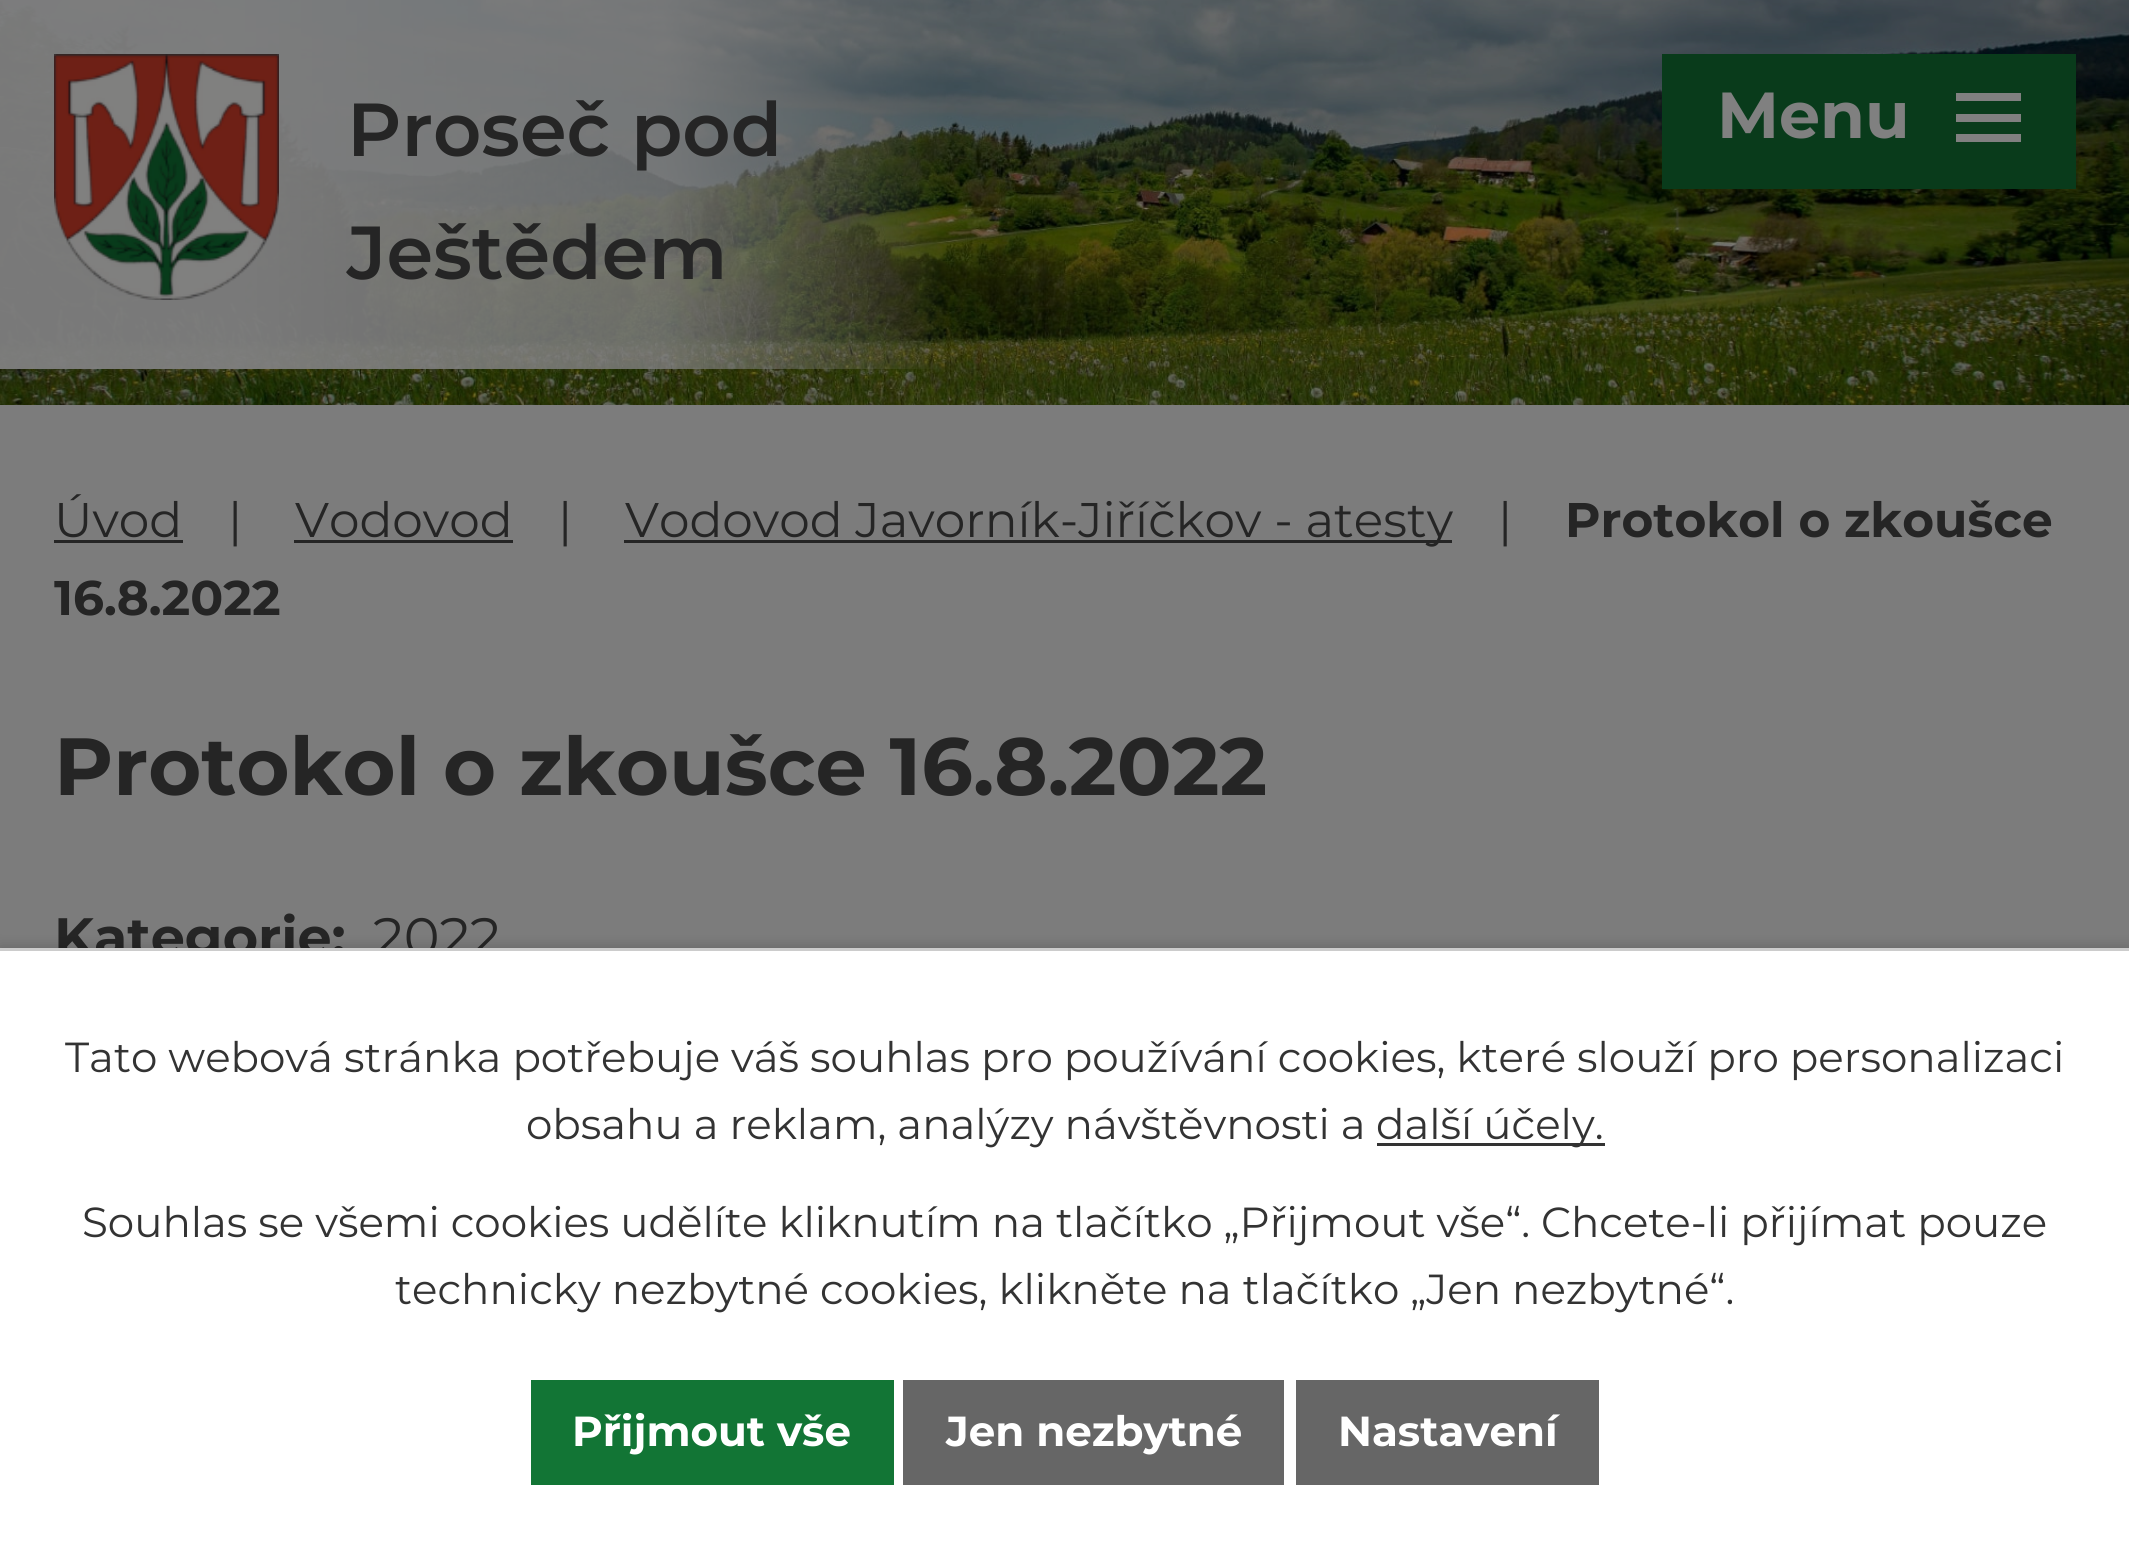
#include <cairo.h>
#include <math.h>
#include <stddef.h>


static void rgb(cairo_t *cr, int r, int g, int b)
{
	cairo_set_source_rgb(cr, r / 255.0, g / 255.0, b / 255.0);
}

static void face(cairo_t *cr, const char *family, double size, int italic, int bold)
{
	cairo_select_font_face(cr, family, italic ? CAIRO_FONT_SLANT_ITALIC : CAIRO_FONT_SLANT_NORMAL,
		bold ? CAIRO_FONT_WEIGHT_BOLD : CAIRO_FONT_WEIGHT_NORMAL);
	cairo_set_font_size(cr, size);
}

static void label(cairo_t *cr, double x, double y, const char *s)
{
	cairo_move_to(cr, x, y);
	cairo_show_text(cr, s);
}

static void rect(cairo_t *cr, double x, double y, double w, double h)
{
	cairo_rectangle(cr, x, y, w, h);
	cairo_fill(cr);
}

static void rrect(cairo_t *cr, double x, double y, double w, double h, double r)
{
	cairo_new_sub_path(cr);
	cairo_arc(cr, x + w - r, y + h - r, r, 0, M_PI / 2);
	cairo_arc(cr, x + r, y + h - r, r, M_PI / 2, M_PI);
	cairo_arc(cr, x + r, y + r, r, M_PI, 1.5 * M_PI);
	cairo_arc(cr, x + w - r, y + r, r, 1.5 * M_PI, 2 * M_PI);
	cairo_close_path(cr);
}

static void soft_shadow(cairo_t *cr, double x, double y, double w, double h, double r, double blur, double alpha)
{
	cairo_push_group_with_content(cr, CAIRO_CONTENT_ALPHA);
	cairo_set_operator(cr, CAIRO_OPERATOR_SOURCE);
	for (int i = 15; i >= -15 && fmin(w, h) + blur * i / 3 > 0; i -= 2) {
		double e = blur * i / 6;
		cairo_set_source_rgba(cr, 0, 0, 0, alpha * erfc((i - 1) / 8.5) / 2);
		rrect(cr, x - e, y - e, w + 2 * e, h + 2 * e, fmax(0, fmin(r + e + blur * .6, fmin(w, h) / 2 + e)));
		cairo_fill(cr);
	}
	cairo_pattern_t *soft = cairo_pop_group(cr);
	cairo_mask(cr, soft);
	cairo_pattern_destroy(soft);
}

static void image(cairo_t *cr, const char *path, double x, double y, double w, double h)
{
	cairo_surface_t *image = cairo_image_surface_create_from_png(path);
	cairo_save(cr);
	cairo_set_source_surface(cr, image, x, y);
	cairo_rectangle(cr, x, y, w, h);
	cairo_fill(cr);
	cairo_restore(cr);
	cairo_surface_destroy(image);
}

static void draw(cairo_t *cr) {
	rgb(cr, 124, 124, 124);
	cairo_paint(cr);
	image(cr, "image0.png", 0, 0, 2129, 405);
	image(cr, "image1.png", 54, 54, 225, 246);
	face(cr, "Montserrat SemiBold", 75, 0, 0);
	rgb(cr, 37, 37, 37);
	label(cr, 347, 156, "Proseč pod");
	label(cr, 347, 279, "Ještědem");
	rgb(cr, 9, 59, 27);
	rect(cr, 1662, 54, 414, 135);
	face(cr, "Montserrat", 65, 0, 1);
	rgb(cr, 128, 128, 128);
	label(cr, 1717, 138, "Menu");
	cairo_new_path(cr);
	cairo_move_to(cr, 1956, 142);
	cairo_line_to(cr, 1956, 134);
	cairo_line_to(cr, 2021, 134);
	cairo_line_to(cr, 2021, 142);
	cairo_close_path(cr);
	cairo_move_to(cr, 1956, 93);
	cairo_line_to(cr, 2021, 93);
	cairo_line_to(cr, 2021, 101);
	cairo_line_to(cr, 1956, 101);
	cairo_close_path(cr);
	cairo_move_to(cr, 1956, 122);
	cairo_line_to(cr, 1956, 114);
	cairo_line_to(cr, 2021, 114);
	cairo_line_to(cr, 2021, 122);
	cairo_close_path(cr);
	cairo_fill(cr);
	face(cr, "Montserrat", 48.6, 0, 0);
	rgb(cr, 37, 37, 37);
	label(cr, 54, 537, "Úvod");
	rect(cr, 54, 540, 129, 3);
	label(cr, 228, 537, "|");
	label(cr, 295, 537, "Vodovod");
	rect(cr, 294, 540, 219, 3);
	label(cr, 558, 537, "|");
	rect(cr, 624, 540, 828, 3);
	label(cr, 625, 537, "Vodovod Javorník-Jiříčkov - atesty");
	label(cr, 1498, 537, "|");
	face(cr, "Montserrat", 48.6, 0, 1);
	label(cr, 1565, 537, "Protokol o zkoušce");
	label(cr, 54, 615, "16.8.2022");
	face(cr, "Montserrat", 81, 0, 1);
	label(cr, 54, 795, "Protokol o zkoušce 16.8.2022");
	face(cr, "Montserrat", 54, 0, 1);
	label(cr, 54, 956, "Kategorie:");
	face(cr, "Montserrat", 54, 0, 0);
	label(cr, 373, 956, "2022");
	rgb(cr, 0, 0, 0);
	soft_shadow(cr, 0, 948, 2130, 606, 0, 7.5, 0.2);
	rgb(cr, 255, 255, 255);
	rect(cr, 0, 951, 2129, 601);
	rgb(cr, 204, 204, 204);
	rect(cr, 0, 948, 2129, 3);
	face(cr, "Montserrat", 42, 0, 0);
	rgb(cr, 51, 51, 51);
	label(cr, 65, 1072, "Tato webová stránka potřebuje váš souhlas pro používání cookies, které slouží pro personalizaci");
	label(cr, 526, 1139, "obsahu a reklam, analýzy návštěvnosti a");
	rect(cr, 1377, 1143, 228, 3);
	label(cr, 1376, 1139, "další účely.");
	label(cr, 82, 1237, "Souhlas se všemi cookies udělíte kliknutím na tlačítko „Přijmout vše“. Chcete-li přijímat pouze");
	label(cr, 395, 1304, "technicky nezbytné cookies, klikněte na tlačítko „Jen nezbytné“.");
	rgb(cr, 18, 117, 53);
	rect(cr, 531, 1380, 363, 105);
	face(cr, "Montserrat", 42, 0, 1);
	rgb(cr, 255, 255, 255);
	label(cr, 572, 1446, "Přijmout vše");
	rgb(cr, 102, 102, 102);
	rect(cr, 903, 1380, 381, 105);
	rgb(cr, 255, 255, 255);
	label(cr, 946, 1446, "Jen nezbytné");
	rgb(cr, 102, 102, 102);
	rect(cr, 1296, 1380, 303, 105);
	rgb(cr, 255, 255, 255);
	label(cr, 1338, 1446, "Nastavení");
}

int main(void) {
	cairo_surface_t *surface = cairo_image_surface_create(CAIRO_FORMAT_RGB24, 2129, 1552);
	cairo_t *cr = cairo_create(surface);
	cairo_font_options_t *options = cairo_font_options_create();
	cairo_font_options_set_hint_metrics(options, CAIRO_HINT_METRICS_OFF);
	cairo_font_options_set_hint_style(options, CAIRO_HINT_STYLE_NONE);
	cairo_set_font_options(cr, options);
	cairo_set_miter_limit(cr, 4);
	draw(cr);
	cairo_surface_write_to_png(surface, "render.png");
	cairo_font_options_destroy(options);
	cairo_destroy(cr);
	cairo_surface_destroy(surface);
	return 0;
}
